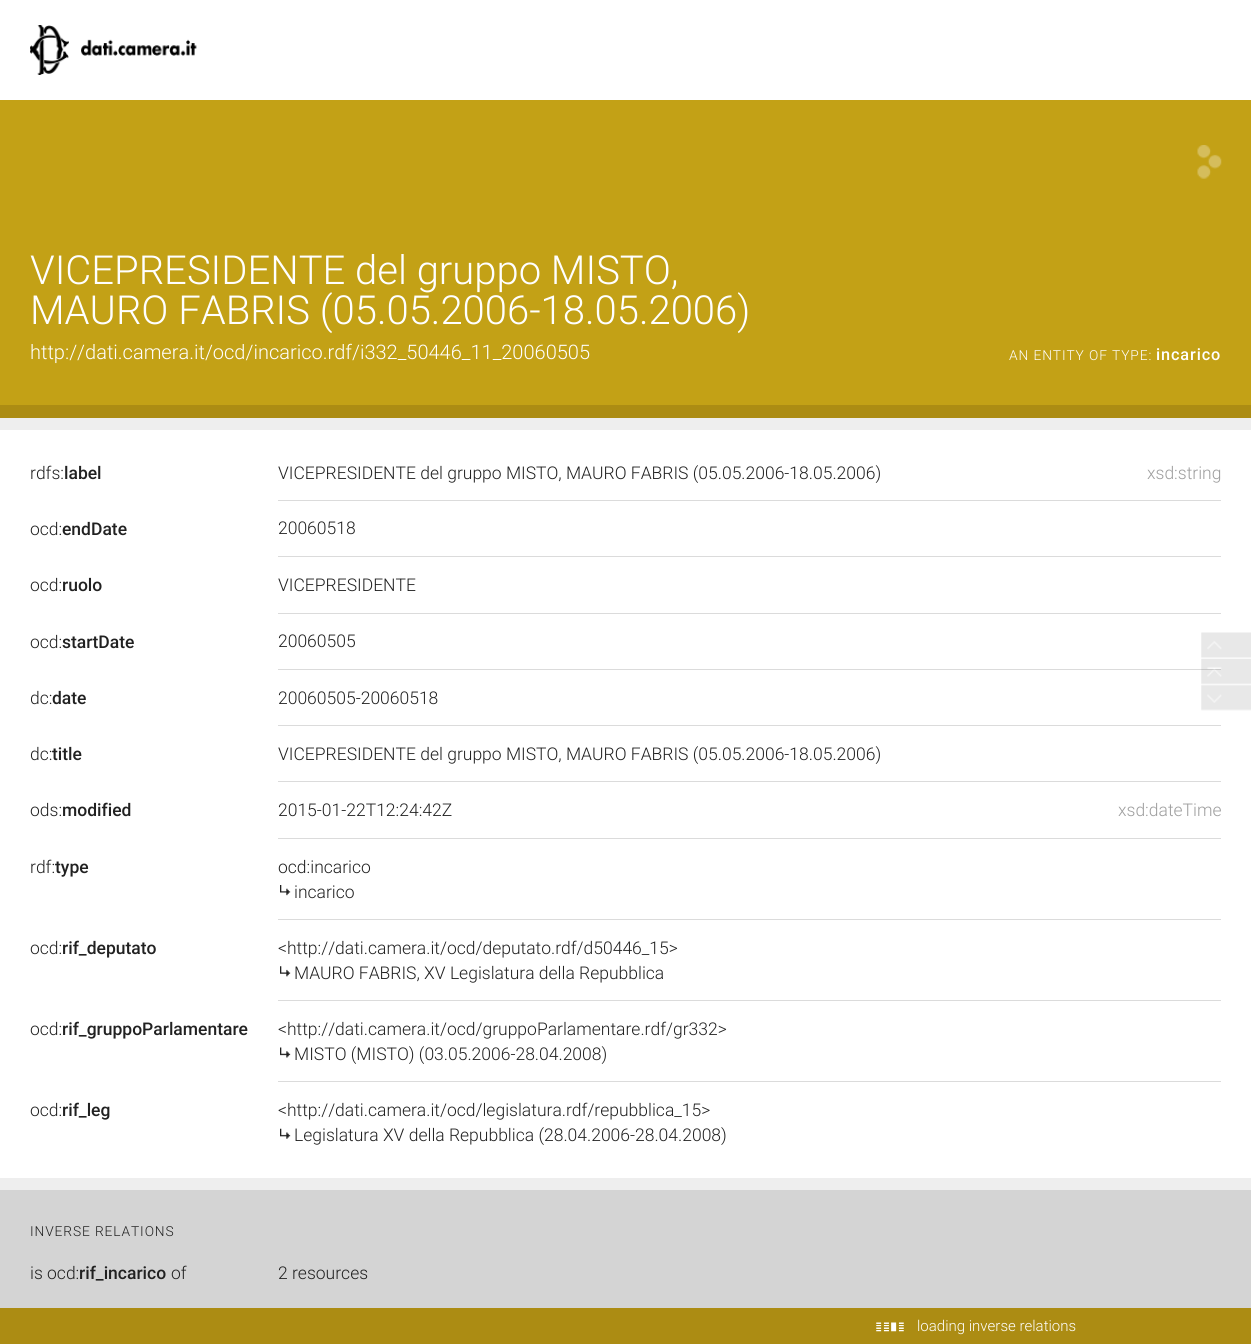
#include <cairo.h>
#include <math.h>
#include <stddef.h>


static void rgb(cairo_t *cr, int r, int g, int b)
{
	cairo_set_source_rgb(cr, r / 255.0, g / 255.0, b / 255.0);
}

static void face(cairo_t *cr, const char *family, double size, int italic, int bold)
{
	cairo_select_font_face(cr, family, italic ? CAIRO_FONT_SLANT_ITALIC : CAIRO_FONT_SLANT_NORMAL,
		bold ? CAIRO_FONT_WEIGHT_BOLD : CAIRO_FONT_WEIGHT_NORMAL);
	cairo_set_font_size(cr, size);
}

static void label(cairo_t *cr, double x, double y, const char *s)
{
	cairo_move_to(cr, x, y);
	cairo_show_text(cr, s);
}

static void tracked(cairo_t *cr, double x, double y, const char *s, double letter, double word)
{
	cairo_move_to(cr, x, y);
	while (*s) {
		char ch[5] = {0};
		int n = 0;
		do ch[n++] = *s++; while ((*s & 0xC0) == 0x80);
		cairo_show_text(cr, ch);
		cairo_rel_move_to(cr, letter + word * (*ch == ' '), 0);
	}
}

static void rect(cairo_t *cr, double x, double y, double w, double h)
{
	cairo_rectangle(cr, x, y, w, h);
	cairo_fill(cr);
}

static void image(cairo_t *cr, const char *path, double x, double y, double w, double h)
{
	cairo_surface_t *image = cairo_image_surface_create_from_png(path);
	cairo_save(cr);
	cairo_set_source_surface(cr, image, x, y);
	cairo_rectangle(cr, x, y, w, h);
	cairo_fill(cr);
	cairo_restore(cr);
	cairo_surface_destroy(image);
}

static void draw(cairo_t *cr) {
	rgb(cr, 172, 140, 19);
	cairo_paint(cr);
	rgb(cr, 255, 255, 255);
	rect(cr, 0, 0, 1251, 100);
	image(cr, "image0.png", 30, 25, 167, 50);
	rgb(cr, 195, 161, 22);
	rect(cr, 0, 100, 1251, 305);
	face(cr, "Roboto Light", 40, 0, 0);
	rgb(cr, 255, 255, 255);
	label(cr, 30, 284, "VICEPRESIDENTE del gruppo MISTO,");
	label(cr, 30, 324, "MAURO FABRIS (05.05.2006-18.05.2006)");
	image(cr, "image1.png", 1197, 145, 25, 34);
	face(cr, "Roboto Light", 20, 0, 0);
	label(cr, 30, 359, "http://dati.camera.it/ocd/incarico.rdf/i332_50446_11_20060505");
	face(cr, "Roboto Light", 13.75, 0, 0);
	tracked(cr, 1009, 360, "AN ENTITY OF TYPE:", 0.9, 0);
	face(cr, "Roboto Medium", 16.25, 0, 0);
	tracked(cr, 1156, 360, "incarico", 0.9, 0);
	rgb(cr, 238, 238, 238);
	rect(cr, 0, 418, 1251, 12);
	rgb(cr, 255, 255, 255);
	rect(cr, 0, 430, 1251, 748);
	face(cr, "Roboto Light", 17.5, 0, 0);
	rgb(cr, 33, 33, 33);
	label(cr, 30, 479, "rdfs:");
	face(cr, "Roboto Medium", 17.5, 0, 0);
	label(cr, 64, 479, "label");
	rgb(cr, 219, 219, 219);
	rect(cr, 278, 500, 943, 1);
	face(cr, "Roboto Light", 17.5, 0, 0);
	rgb(cr, 33, 33, 33);
	label(cr, 278, 479, "VICEPRESIDENTE del gruppo MISTO, MAURO FABRIS (05.05.2006-18.05.2006)");
	rgb(cr, 158, 158, 158);
	label(cr, 1147, 479, "xsd:string");
	rgb(cr, 33, 33, 33);
	label(cr, 30, 535, "ocd:");
	face(cr, "Roboto Medium", 17.5, 0, 0);
	label(cr, 62, 535, "endDate");
	rgb(cr, 219, 219, 219);
	rect(cr, 278, 556, 943, 1);
	face(cr, "Roboto Light", 17.5, 0, 0);
	rgb(cr, 33, 33, 33);
	label(cr, 278, 534, "20060518");
	label(cr, 30, 591, "ocd:");
	face(cr, "Roboto Medium", 17.5, 0, 0);
	label(cr, 62, 591, "ruolo");
	rgb(cr, 219, 219, 219);
	rect(cr, 278, 613, 943, 1);
	face(cr, "Roboto Light", 17.5, 0, 0);
	rgb(cr, 33, 33, 33);
	label(cr, 278, 591, "VICEPRESIDENTE");
	label(cr, 30, 648, "ocd:");
	face(cr, "Roboto Medium", 17.5, 0, 0);
	label(cr, 62, 648, "startDate");
	rgb(cr, 219, 219, 219);
	rect(cr, 278, 669, 943, 1);
	face(cr, "Roboto Light", 17.5, 0, 0);
	rgb(cr, 33, 33, 33);
	label(cr, 278, 647, "20060505");
	label(cr, 30, 704, "dc:");
	face(cr, "Roboto Medium", 17.5, 0, 0);
	label(cr, 52, 704, "date");
	rgb(cr, 219, 219, 219);
	rect(cr, 278, 725, 943, 1);
	face(cr, "Roboto Light", 17.5, 0, 0);
	rgb(cr, 33, 33, 33);
	label(cr, 278, 704, "20060505-20060518");
	label(cr, 30, 760, "dc:");
	face(cr, "Roboto Medium", 17.5, 0, 0);
	label(cr, 52, 760, "title");
	rgb(cr, 219, 219, 219);
	rect(cr, 278, 781, 943, 1);
	face(cr, "Roboto Light", 17.5, 0, 0);
	rgb(cr, 33, 33, 33);
	label(cr, 278, 760, "VICEPRESIDENTE del gruppo MISTO, MAURO FABRIS (05.05.2006-18.05.2006)");
	label(cr, 30, 816, "ods:");
	face(cr, "Roboto Medium", 17.5, 0, 0);
	label(cr, 62, 816, "modified");
	rgb(cr, 219, 219, 219);
	rect(cr, 278, 838, 943, 1);
	face(cr, "Roboto Light", 17.5, 0, 0);
	rgb(cr, 33, 33, 33);
	label(cr, 278, 816, "2015-01-22T12:24:42Z");
	rgb(cr, 158, 158, 158);
	label(cr, 1118, 816, "xsd:dateTime");
	rgb(cr, 33, 33, 33);
	label(cr, 30, 873, "rdf:");
	face(cr, "Roboto Medium", 17.5, 0, 0);
	label(cr, 55, 873, "type");
	rgb(cr, 219, 219, 219);
	rect(cr, 278, 919, 943, 1);
	face(cr, "Roboto Light", 17.5, 0, 0);
	rgb(cr, 33, 33, 33);
	label(cr, 278, 873, "ocd:incarico");
	image(cr, "image2.png", 280, 885, 11, 11);
	label(cr, 294, 898, "incarico");
	label(cr, 30, 954, "ocd:");
	face(cr, "Roboto Medium", 17.5, 0, 0);
	label(cr, 62, 954, "rif_deputato");
	rgb(cr, 219, 219, 219);
	rect(cr, 278, 1000, 943, 1);
	face(cr, "Roboto Light", 17.5, 0, 0);
	rgb(cr, 33, 33, 33);
	label(cr, 278, 954, "<http://dati.camera.it/ocd/deputato.rdf/d50446_15>");
	image(cr, "image3.png", 280, 966, 11, 11);
	label(cr, 294, 979, "MAURO FABRIS, XV Legislatura della Repubblica");
	label(cr, 30, 1035, "ocd:");
	face(cr, "Roboto Medium", 17.5, 0, 0);
	label(cr, 62, 1035, "rif_gruppoParlamentare");
	rgb(cr, 219, 219, 219);
	rect(cr, 278, 1081, 943, 1);
	face(cr, "Roboto Light", 17.5, 0, 0);
	rgb(cr, 33, 33, 33);
	label(cr, 278, 1035, "<http://dati.camera.it/ocd/gruppoParlamentare.rdf/gr332>");
	image(cr, "image4.png", 280, 1047, 11, 11);
	label(cr, 294, 1060, "MISTO (MISTO) (03.05.2006-28.04.2008)");
	label(cr, 30, 1116, "ocd:");
	face(cr, "Roboto Medium", 17.5, 0, 0);
	label(cr, 62, 1116, "rif_leg");
	face(cr, "Roboto Light", 17.5, 0, 0);
	label(cr, 278, 1116, "<http://dati.camera.it/ocd/legislatura.rdf/repubblica_15>");
	image(cr, "image5.png", 280, 1128, 11, 11);
	label(cr, 294, 1141, "Legislatura XV della Repubblica (28.04.2006-28.04.2008)");
	rgb(cr, 238, 238, 238);
	rect(cr, 0, 1178, 1251, 12);
	rgb(cr, 212, 212, 212);
	rect(cr, 0, 1190, 1251, 118);
	face(cr, "Roboto Light", 13.75, 0, 0);
	rgb(cr, 33, 33, 33);
	tracked(cr, 30, 1236, "INVERSE RELATIONS", 0.9, 0);
	face(cr, "Roboto Light", 17.5, 0, 0);
	label(cr, 30, 1279, "is ocd:");
	face(cr, "Roboto Medium", 17.5, 0, 0);
	label(cr, 79, 1279, "rif_incarico");
	face(cr, "Roboto Light", 17.5, 0, 0);
	label(cr, 171, 1279, "of");
	label(cr, 278, 1279, "2 resources");
	image(cr, "image6.png", 1201, 632, 50, 26);
	image(cr, "image7.png", 1201, 658, 50, 26);
	image(cr, "image8.png", 1201, 684, 50, 27);
	image(cr, "image9.png", 876, 1322, 28, 10);
	face(cr, "Roboto Light", 15, 0, 0);
	rgb(cr, 255, 255, 255);
	label(cr, 917, 1331, "loading inverse relations");
}

int main(void) {
	cairo_surface_t *surface = cairo_image_surface_create(CAIRO_FORMAT_RGB24, 1251, 1344);
	cairo_t *cr = cairo_create(surface);
	cairo_font_options_t *options = cairo_font_options_create();
	cairo_font_options_set_hint_metrics(options, CAIRO_HINT_METRICS_OFF);
	cairo_font_options_set_hint_style(options, CAIRO_HINT_STYLE_NONE);
	cairo_set_font_options(cr, options);
	cairo_set_miter_limit(cr, 4);
	draw(cr);
	cairo_surface_write_to_png(surface, "render.png");
	cairo_font_options_destroy(options);
	cairo_destroy(cr);
	cairo_surface_destroy(surface);
	return 0;
}
